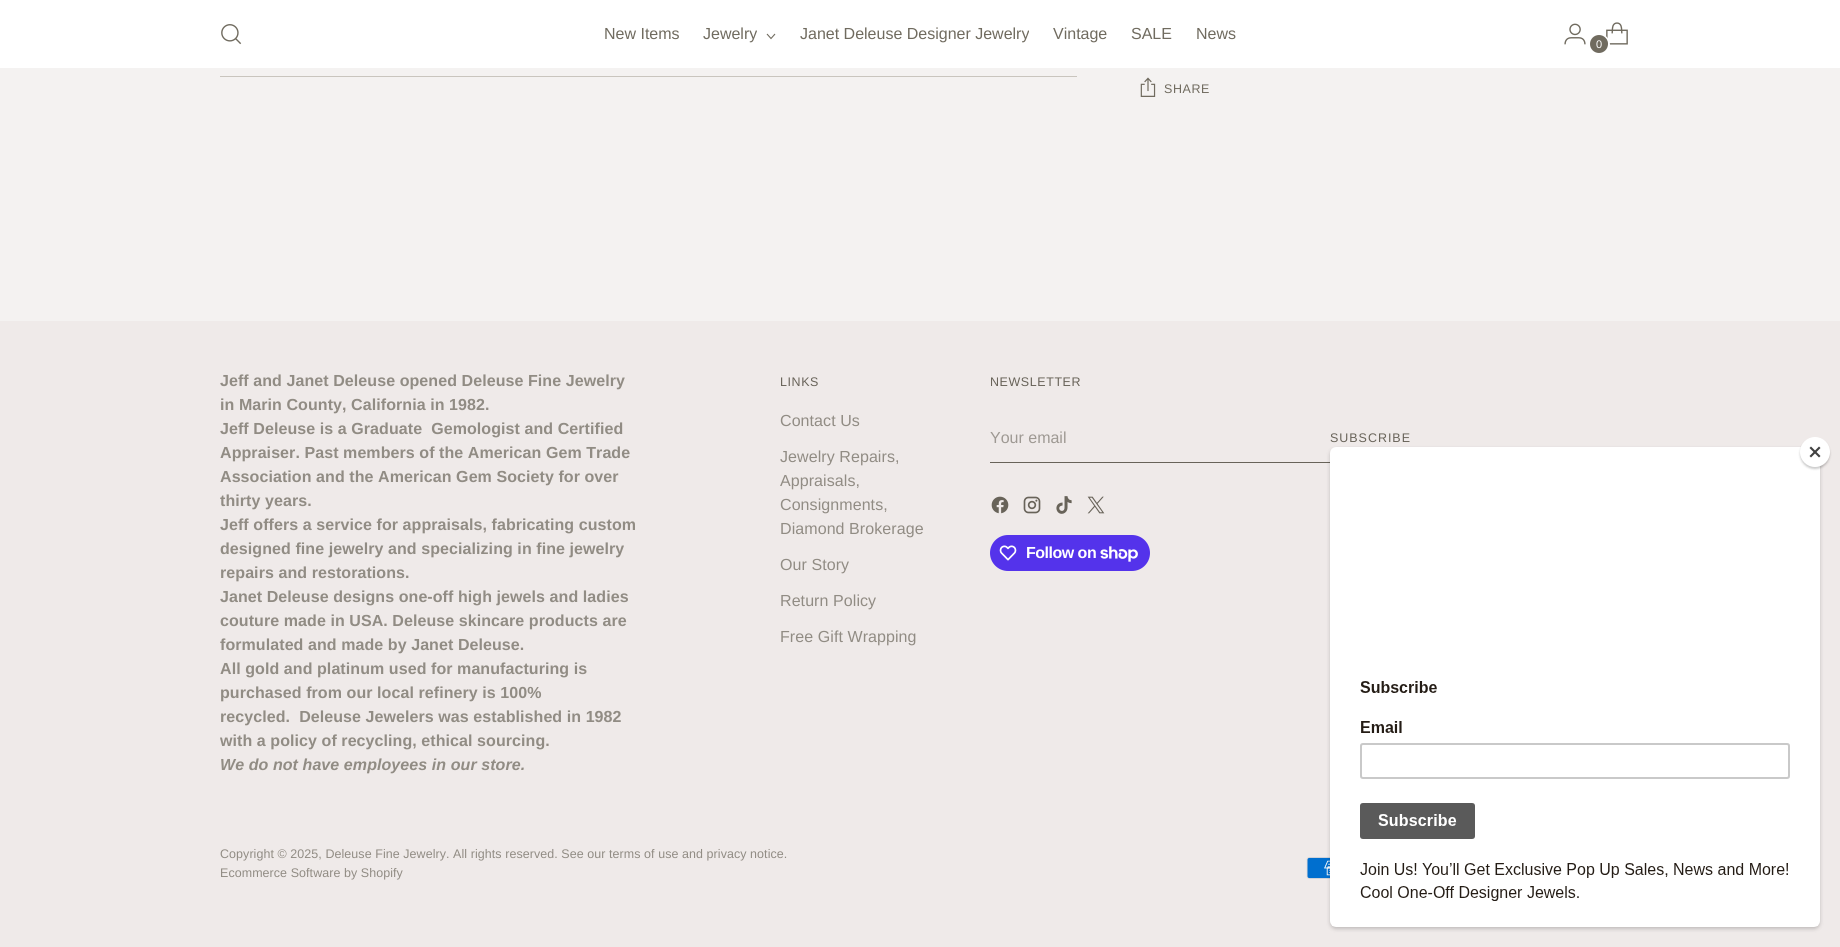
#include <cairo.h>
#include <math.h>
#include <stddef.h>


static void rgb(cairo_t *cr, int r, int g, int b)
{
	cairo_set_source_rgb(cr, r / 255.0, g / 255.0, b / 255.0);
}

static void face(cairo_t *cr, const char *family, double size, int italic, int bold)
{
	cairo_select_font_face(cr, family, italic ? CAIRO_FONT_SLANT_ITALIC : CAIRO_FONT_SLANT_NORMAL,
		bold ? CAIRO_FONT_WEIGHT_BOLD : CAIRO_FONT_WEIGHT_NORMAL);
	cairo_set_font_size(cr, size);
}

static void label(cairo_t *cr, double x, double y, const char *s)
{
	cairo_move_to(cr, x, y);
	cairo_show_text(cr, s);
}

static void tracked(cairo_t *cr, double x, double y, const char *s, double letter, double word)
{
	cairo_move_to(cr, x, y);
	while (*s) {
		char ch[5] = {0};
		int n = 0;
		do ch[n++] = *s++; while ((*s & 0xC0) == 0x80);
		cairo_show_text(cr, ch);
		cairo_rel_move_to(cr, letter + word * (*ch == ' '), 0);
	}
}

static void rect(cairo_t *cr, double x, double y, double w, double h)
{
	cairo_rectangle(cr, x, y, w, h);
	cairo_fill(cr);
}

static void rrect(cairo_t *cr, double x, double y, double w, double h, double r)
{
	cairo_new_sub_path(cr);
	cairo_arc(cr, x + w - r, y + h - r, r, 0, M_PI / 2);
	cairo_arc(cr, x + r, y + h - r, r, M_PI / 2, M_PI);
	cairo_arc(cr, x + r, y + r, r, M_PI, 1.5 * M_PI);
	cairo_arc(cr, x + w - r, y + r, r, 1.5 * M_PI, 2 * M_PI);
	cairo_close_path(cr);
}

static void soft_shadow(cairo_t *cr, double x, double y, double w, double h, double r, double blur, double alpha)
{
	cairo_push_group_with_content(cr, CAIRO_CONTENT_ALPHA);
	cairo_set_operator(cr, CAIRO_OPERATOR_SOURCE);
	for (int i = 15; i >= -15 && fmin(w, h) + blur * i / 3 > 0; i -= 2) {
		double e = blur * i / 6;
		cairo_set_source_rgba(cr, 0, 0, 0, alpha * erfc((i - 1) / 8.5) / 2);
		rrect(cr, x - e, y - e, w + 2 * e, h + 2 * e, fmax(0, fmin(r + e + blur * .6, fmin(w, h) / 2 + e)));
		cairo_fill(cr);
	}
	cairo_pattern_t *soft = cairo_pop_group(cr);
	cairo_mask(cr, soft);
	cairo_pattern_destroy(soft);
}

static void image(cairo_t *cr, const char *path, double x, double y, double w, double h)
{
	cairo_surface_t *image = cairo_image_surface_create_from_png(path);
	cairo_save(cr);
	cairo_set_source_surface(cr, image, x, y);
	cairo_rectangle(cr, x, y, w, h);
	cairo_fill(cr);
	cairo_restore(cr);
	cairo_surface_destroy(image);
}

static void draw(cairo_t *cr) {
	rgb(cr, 244, 242, 241);
	cairo_paint(cr);
	rgb(cr, 255, 255, 255);
	rect(cr, 0, 0, 1840, 68);
	image(cr, "image0.png", 221, 24, 21, 21);
	face(cr, "Arimo", 16, 0, 0);
	rgb(cr, 112, 107, 95);
	label(cr, 604, 39, "New Items");
	label(cr, 703, 39, "Jewelry");
	cairo_new_path(cr);
	cairo_move_to(cr, 767, 34);
	cairo_line_to(cr, 771, 38.5);
	cairo_line_to(cr, 775, 34);
	cairo_set_line_width(cr, 1.1);
	cairo_stroke(cr);
	label(cr, 800, 39, "Janet Deleuse Designer Jewelry");
	label(cr, 1053, 39, "Vintage");
	label(cr, 1131, 39, "SALE");
	label(cr, 1196, 39, "News");
	image(cr, "image1.png", 1564, 23, 22, 22);
	image(cr, "image2.png", 1606, 22, 22, 23);
	cairo_arc(cr, 1599.5, 44.5, 9.5, 0, 2 * M_PI);
	rgb(cr, 255, 255, 255);
	cairo_set_line_width(cr, 2);
	cairo_stroke(cr);
	rgb(cr, 112, 107, 95);
	cairo_arc(cr, 1599, 44, 9, 0, 2 * M_PI);
	cairo_fill(cr);
	face(cr, "Arimo", 11, 0, 0);
	rgb(cr, 255, 255, 255);
	tracked(cr, 1596, 48, "0", 0.08, 0);
	rgb(cr, 201, 197, 190);
	rect(cr, 220, 76, 857, 1);
	image(cr, "image3.png", 1140, 77, 16, 20);
	face(cr, "Arimo", 12.45, 0, 0);
	rgb(cr, 112, 107, 95);
	tracked(cr, 1164, 93, "SHARE", 0.6, 0);
	rgb(cr, 239, 234, 233);
	rect(cr, 0, 321, 1840, 626);
	face(cr, "Arimo", 16, 0, 1);
	rgb(cr, 145, 140, 132);
	tracked(cr, 220, 386, "Jeff and Janet Deleuse opened Deleuse Fine Jewelry", 0.08, 0);
	tracked(cr, 220, 410, "in Marin County, California in 1982.", 0.08, 0);
	tracked(cr, 220, 434, "Jeff Deleuse is a Graduate  Gemologist and Certified", 0.08, 0);
	tracked(cr, 220, 458, "Appraiser. Past members of the American Gem Trade", 0.08, 0);
	tracked(cr, 220, 482, "Association and the American Gem Society for over", 0.08, 0);
	tracked(cr, 220, 506, "thirty years.", 0.08, 0);
	tracked(cr, 220, 530, "Jeff offers a service for appraisals, fabricating custom", 0.08, 0);
	tracked(cr, 220, 554, "designed fine jewelry and specializing in fine jewelry", 0.08, 0);
	tracked(cr, 220, 578, "repairs and restorations.", 0.08, 0);
	tracked(cr, 220, 602, "Janet Deleuse designs one-off high jewels and ladies", 0.08, 0);
	tracked(cr, 220, 626, "couture made in USA. Deleuse skincare products are", 0.08, 0);
	tracked(cr, 220, 650, "formulated and made by Janet Deleuse.", 0.08, 0);
	tracked(cr, 220, 674, "All gold and platinum used for manufacturing is", 0.08, 0);
	tracked(cr, 220, 698, "purchased from our local refinery is 100%", 0.08, 0);
	tracked(cr, 220, 722, "recycled.  Deleuse Jewelers was established in 1982", 0.08, 0);
	tracked(cr, 220, 746, "with a policy of recycling, ethical sourcing.", 0.08, 0);
	face(cr, "Arimo", 16, 1, 1);
	tracked(cr, 220, 770, "We do not have employees in our store.", 0.08, 0);
	face(cr, "Arimo", 12.45, 0, 0);
	rgb(cr, 104, 99, 89);
	tracked(cr, 780, 386, "LINKS", 0.6, 0);
	face(cr, "Arimo", 16, 0, 0);
	rgb(cr, 145, 140, 132);
	tracked(cr, 780, 426, "Contact Us", 0.08, 0);
	tracked(cr, 780, 462, "Jewelry Repairs,", 0.08, 0);
	tracked(cr, 780, 486, "Appraisals,", 0.08, 0);
	tracked(cr, 780, 510, "Consignments,", 0.08, 0);
	tracked(cr, 780, 534, "Diamond Brokerage", 0.08, 0);
	tracked(cr, 780, 570, "Our Story", 0.08, 0);
	tracked(cr, 780, 606, "Return Policy", 0.08, 0);
	tracked(cr, 780, 642, "Free Gift Wrapping", 0.08, 0);
	face(cr, "Arimo", 12.45, 0, 0);
	rgb(cr, 104, 99, 89);
	tracked(cr, 990, 386, "NEWSLETTER", 0.6, 0);
	rect(cr, 990, 462, 340, 1);
	face(cr, "Arimo", 16, 0, 0);
	rgb(cr, 158, 153, 147);
	label(cr, 990, 443, "Your email");
	face(cr, "Arimo", 12.45, 0, 0);
	rgb(cr, 104, 99, 89);
	tracked(cr, 1330, 442, "SUBSCRIBE", 1, 0);
	image(cr, "image4.png", 991, 496, 18, 18);
	image(cr, "image5.png", 1023, 496, 18, 18);
	image(cr, "image6.png", 1056, 496, 16, 18);
	image(cr, "image7.png", 1087, 496, 18, 18);
	rgb(cr, 84, 51, 235);
	rrect(cr, 990, 535, 160, 36, 18);
	cairo_fill(cr);
	image(cr, "image8.png", 999, 545, 18, 16);
	face(cr, "Liberation Sans", 16, 0, 1);
	rgb(cr, 255, 255, 255);
	tracked(cr, 1026, 558, "Follow on", -0.5, 0);
	image(cr, "image9.png", 1100, 546, 38, 16);
	face(cr, "Arimo", 12.45, 0, 0);
	rgb(cr, 145, 140, 132);
	tracked(cr, 220, 858, "Copyright © 2025, Deleuse Fine Jewelry. All rights reserved. See our terms of use and privacy notice.", 0.08, 0);
	tracked(cr, 220, 877, "Ecommerce Software by Shopify", 0.08, 0);
	image(cr, "image10.png", 1306, 857, 24, 22);
	rgb(cr, 0, 0, 0);
	soft_shadow(cr, 1330, 449, 490, 480, 6, 2, 0.2);
	image(cr, "image11.png", 1330, 447, 490, 480);
	soft_shadow(cr, 1800, 439, 30, 30, 15, 1, 0.2);
	rgb(cr, 255, 255, 255);
	cairo_arc(cr, 1815, 452, 15, 0, 2 * M_PI);
	cairo_fill(cr);
	rgb(cr, 65, 65, 65);
	cairo_new_path(cr);
	cairo_move_to(cr, 1819, 446.5);
	cairo_line_to(cr, 1820.5, 448);
	cairo_line_to(cr, 1811, 457.5);
	cairo_line_to(cr, 1809.5, 456);
	cairo_close_path(cr);
	cairo_fill(cr);
	cairo_new_path(cr);
	cairo_move_to(cr, 1809.5, 448);
	cairo_line_to(cr, 1811, 446.5);
	cairo_line_to(cr, 1820.5, 456);
	cairo_line_to(cr, 1819, 457.5);
	cairo_close_path(cr);
	cairo_fill(cr);
}

int main(void) {
	cairo_surface_t *surface = cairo_image_surface_create(CAIRO_FORMAT_RGB24, 1840, 947);
	cairo_t *cr = cairo_create(surface);
	cairo_font_options_t *options = cairo_font_options_create();
	cairo_font_options_set_hint_metrics(options, CAIRO_HINT_METRICS_OFF);
	cairo_font_options_set_hint_style(options, CAIRO_HINT_STYLE_NONE);
	cairo_set_font_options(cr, options);
	cairo_set_miter_limit(cr, 4);
	draw(cr);
	cairo_surface_write_to_png(surface, "render.png");
	cairo_font_options_destroy(options);
	cairo_destroy(cr);
	cairo_surface_destroy(surface);
	return 0;
}
